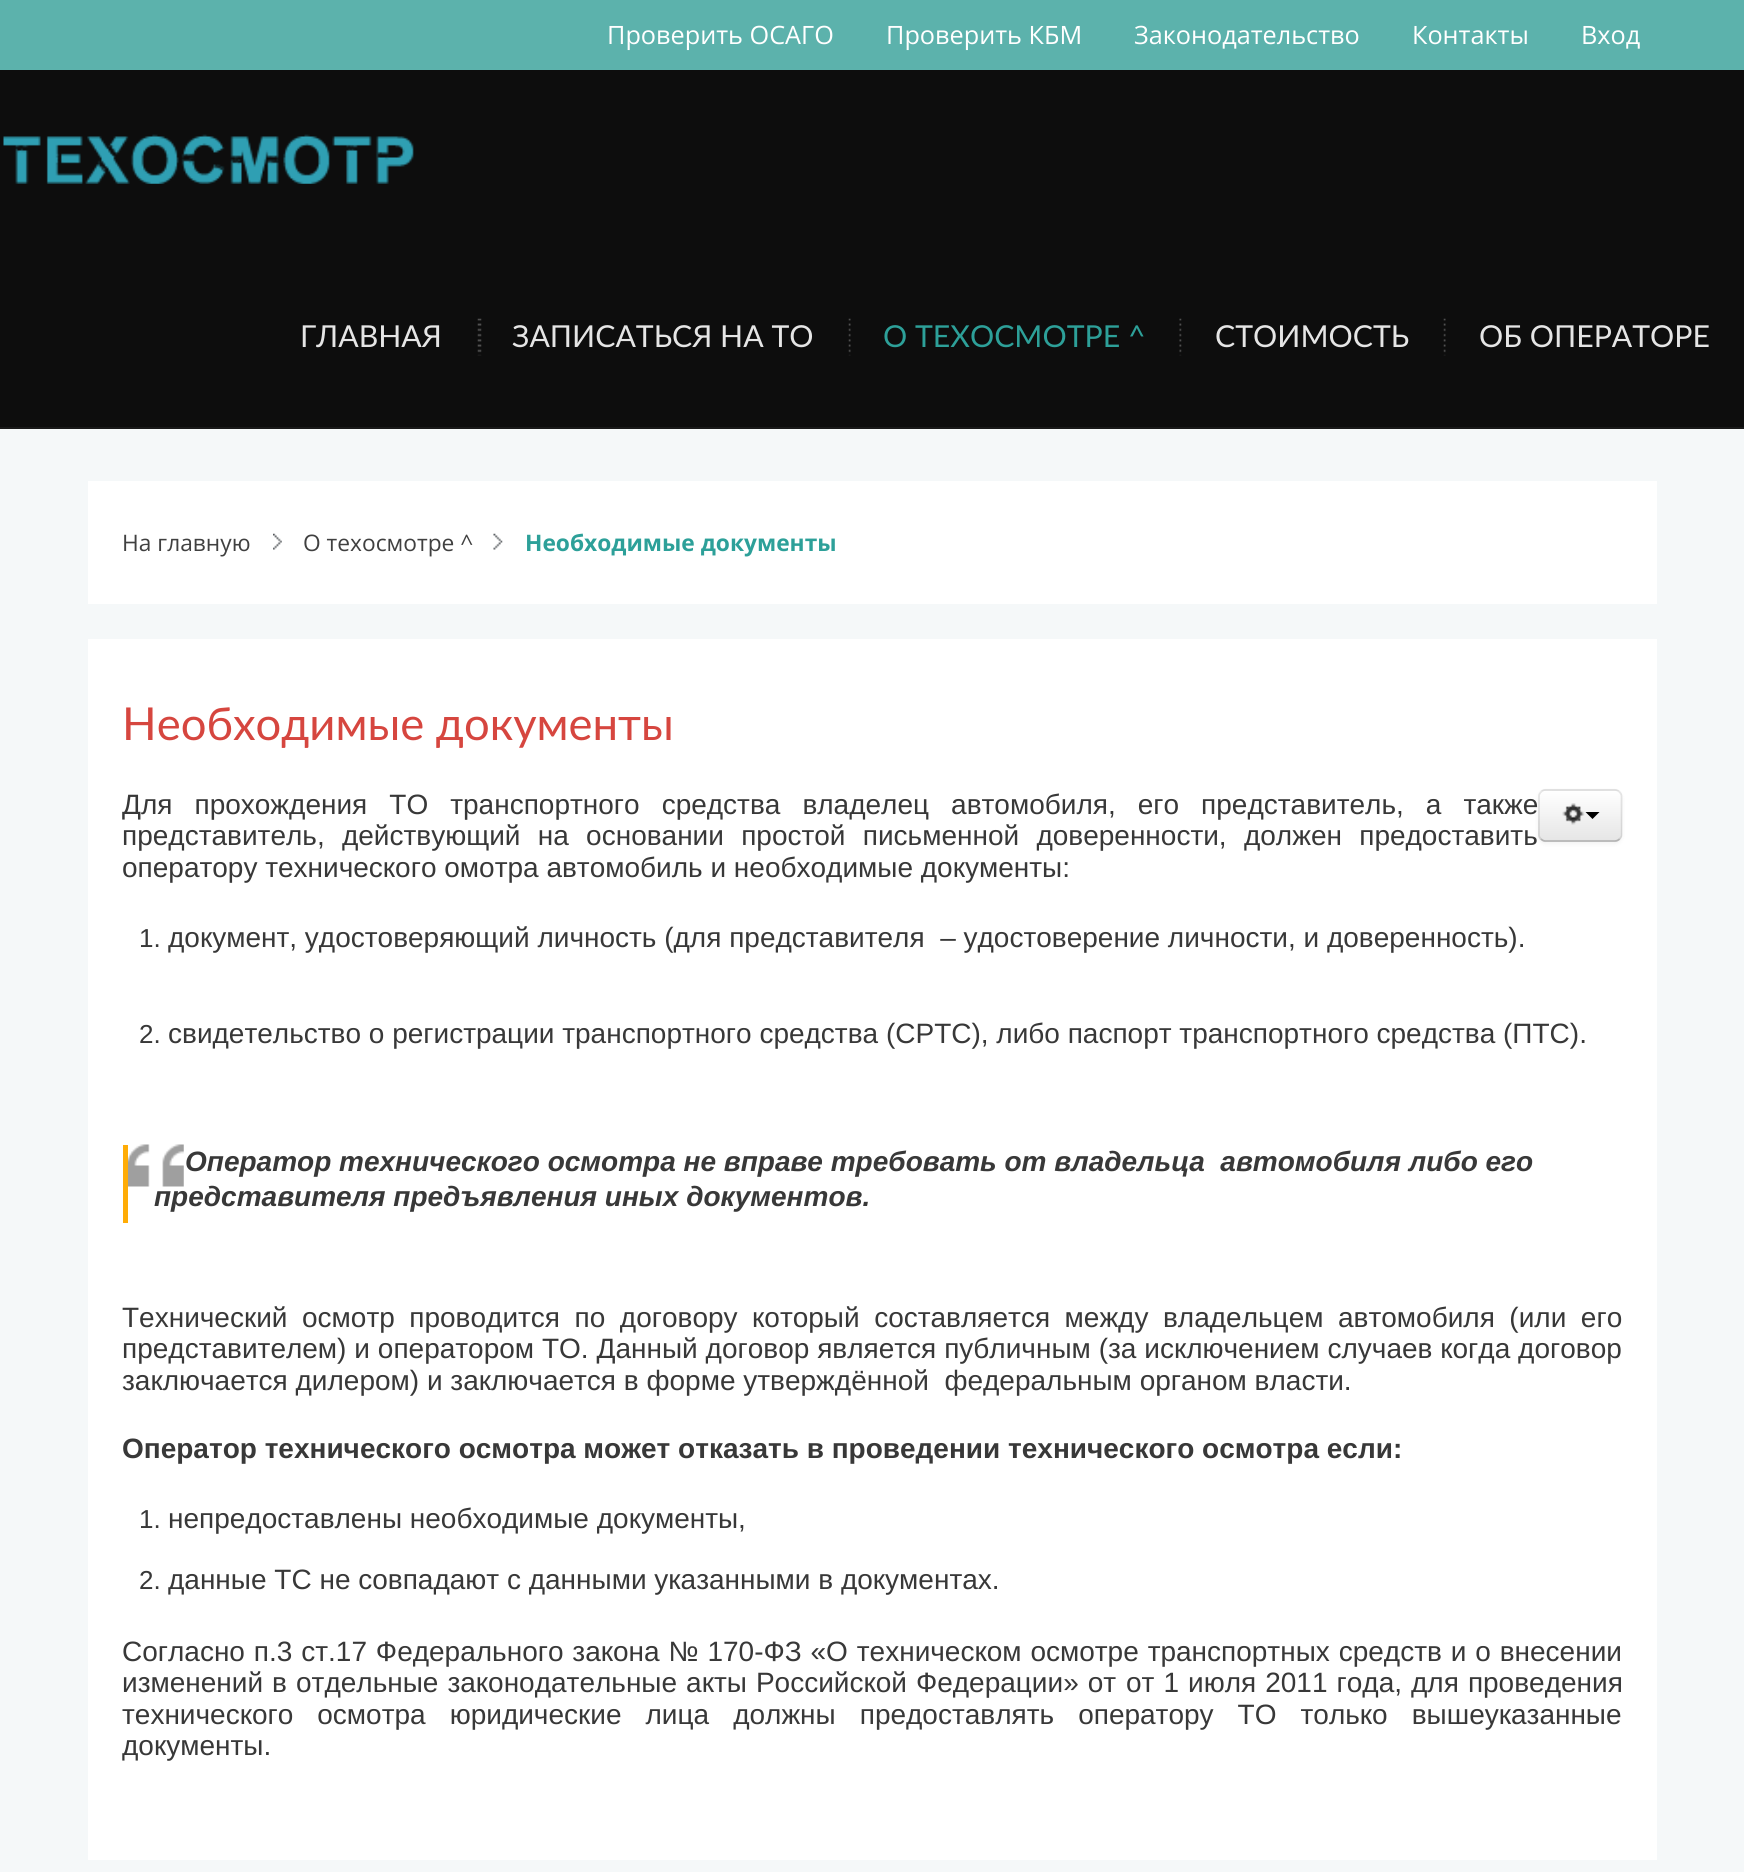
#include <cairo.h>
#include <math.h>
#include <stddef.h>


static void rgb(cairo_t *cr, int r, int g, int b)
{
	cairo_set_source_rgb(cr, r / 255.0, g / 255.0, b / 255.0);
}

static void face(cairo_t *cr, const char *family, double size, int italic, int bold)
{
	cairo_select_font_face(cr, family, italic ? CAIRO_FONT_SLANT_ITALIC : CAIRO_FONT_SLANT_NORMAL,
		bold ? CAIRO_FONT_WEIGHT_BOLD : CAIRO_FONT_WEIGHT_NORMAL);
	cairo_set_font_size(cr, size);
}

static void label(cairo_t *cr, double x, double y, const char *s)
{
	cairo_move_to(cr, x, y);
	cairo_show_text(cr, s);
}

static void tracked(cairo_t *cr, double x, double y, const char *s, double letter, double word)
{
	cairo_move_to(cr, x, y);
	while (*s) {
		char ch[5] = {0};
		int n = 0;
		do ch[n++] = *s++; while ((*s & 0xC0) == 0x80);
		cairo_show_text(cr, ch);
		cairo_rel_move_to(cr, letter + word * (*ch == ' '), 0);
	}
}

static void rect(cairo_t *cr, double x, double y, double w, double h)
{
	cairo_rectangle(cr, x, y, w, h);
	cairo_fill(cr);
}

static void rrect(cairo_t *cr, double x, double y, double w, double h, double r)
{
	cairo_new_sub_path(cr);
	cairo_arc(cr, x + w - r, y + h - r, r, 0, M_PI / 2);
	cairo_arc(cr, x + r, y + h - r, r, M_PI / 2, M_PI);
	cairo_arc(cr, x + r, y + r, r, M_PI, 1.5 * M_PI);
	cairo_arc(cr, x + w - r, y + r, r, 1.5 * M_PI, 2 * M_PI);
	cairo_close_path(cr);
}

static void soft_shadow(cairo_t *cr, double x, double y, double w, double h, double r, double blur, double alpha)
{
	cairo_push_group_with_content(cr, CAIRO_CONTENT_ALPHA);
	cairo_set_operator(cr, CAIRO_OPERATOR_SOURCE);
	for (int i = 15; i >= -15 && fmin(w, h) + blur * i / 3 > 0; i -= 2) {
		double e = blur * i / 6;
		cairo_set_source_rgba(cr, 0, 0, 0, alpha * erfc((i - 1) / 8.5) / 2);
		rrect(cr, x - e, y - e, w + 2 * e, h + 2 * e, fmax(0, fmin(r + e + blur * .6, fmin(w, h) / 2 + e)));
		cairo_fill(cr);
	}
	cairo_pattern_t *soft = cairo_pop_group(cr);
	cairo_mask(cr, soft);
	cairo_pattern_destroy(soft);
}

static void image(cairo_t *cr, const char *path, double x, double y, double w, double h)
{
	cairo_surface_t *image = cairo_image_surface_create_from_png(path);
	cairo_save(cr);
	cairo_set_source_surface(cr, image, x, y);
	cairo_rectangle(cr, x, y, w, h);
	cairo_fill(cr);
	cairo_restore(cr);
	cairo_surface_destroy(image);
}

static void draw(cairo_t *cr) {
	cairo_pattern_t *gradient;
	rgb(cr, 245, 248, 249);
	cairo_paint(cr);
	rgb(cr, 92, 178, 172);
	rect(cr, 0, 0, 1744, 70);
	face(cr, "Open Sans", 25.25, 0, 0);
	rgb(cr, 255, 255, 255);
	label(cr, 607, 44, "Проверить ОСАГО");
	label(cr, 886, 44, "Проверить КБМ");
	label(cr, 1134, 44, "Законодательство");
	label(cr, 1412, 44, "Контакты");
	label(cr, 1581, 44, "Вход");
	rgb(cr, 13, 13, 13);
	rect(cr, 0, 70, 1744, 357);
	rgb(cr, 25, 25, 25);
	rect(cr, 0, 427, 1744, 2);
	image(cr, "image0.png", 3, 134, 411, 50);
	face(cr, "Lato", 30.25, 0, 0);
	rgb(cr, 229, 229, 229);
	label(cr, 300, 347, "ГЛАВНАЯ");
	image(cr, "image1.png", 477, 318, 5, 38);
	label(cr, 512, 347, "ЗАПИСАТЬСЯ НА ТО");
	image(cr, "image2.png", 848, 318, 3, 38);
	rgb(cr, 45, 160, 153);
	label(cr, 883, 347, "О ТЕХОСМОТРЕ ^");
	image(cr, "image3.png", 1179, 318, 3, 38);
	rgb(cr, 229, 229, 229);
	label(cr, 1215, 347, "СТОИМОСТЬ");
	image(cr, "image2.png", 1443, 318, 3, 38);
	label(cr, 1479, 347, "ОБ ОПЕРАТОРЕ");
	rgb(cr, 255, 255, 255);
	rect(cr, 88, 481, 1569, 123);
	face(cr, "Open Sans", 22.75, 0, 0);
	rgb(cr, 64, 64, 64);
	label(cr, 122, 551, "На главную");
	image(cr, "image4.png", 273, 533, 9, 17);
	label(cr, 303, 551, "О техосмотре ^");
	image(cr, "image5.png", 493, 533, 10, 17);
	face(cr, "Open Sans", 22.75, 0, 1);
	rgb(cr, 45, 160, 153);
	label(cr, 525, 551, "Необходимые документы");
	rgb(cr, 255, 255, 255);
	rect(cr, 88, 639, 1569, 1221);
	face(cr, "Lato", 45.4, 0, 0);
	rgb(cr, 214, 70, 63);
	label(cr, 122, 740, "Необходимые документы");
	rgb(cr, 0, 0, 0);
	soft_shadow(cr, 1538, 791, 84, 53, 7, 2, 0.05);
	rgb(cr, 245, 245, 245);
	rrect(cr, 1538, 789, 84, 53, 7);
	cairo_fill(cr);
	cairo_save(cr);
	rrect(cr, 1538, 789, 84, 53, 7);
	cairo_clip(cr);
	gradient = cairo_pattern_create_linear(1580, 791, 1580, 840);
	cairo_pattern_add_color_stop_rgba(gradient, 0, 1, 1, 1, 1);
	cairo_pattern_add_color_stop_rgba(gradient, 1, 0.902, 0.902, 0.902, 1);
	cairo_set_source(cr, gradient);
	cairo_pattern_destroy(gradient);
	rect(cr, 1538, 791, 84, 49);
	cairo_restore(cr);
	cairo_set_source_rgba(cr, 1, 1, 1, 0.2);
	cairo_new_path(cr);
	cairo_move_to(cr, 1545, 793);
	cairo_line_to(cr, 1615, 793);
	cairo_curve_to(cr, 1618, 793, 1620, 795, 1620, 798);
	cairo_line_to(cr, 1620, 836);
	cairo_line_to(cr, 1620, 839);
	cairo_curve_to(cr, 1622, 836, 1621, 831, 1621, 828);
	cairo_line_to(cr, 1621, 816);
	cairo_curve_to(cr, 1621, 785, 1625, 791, 1592, 791);
	cairo_line_to(cr, 1557, 791);
	cairo_curve_to(cr, 1549, 791, 1540, 788, 1540, 798);
	cairo_curve_to(cr, 1540, 795, 1542, 793, 1545, 793);
	cairo_close_path(cr);
	cairo_fill(cr);
	cairo_new_path(cr);
	cairo_move_to(cr, 1619.5, 839);
	cairo_curve_to(cr, 1618.5, 840, 1617, 841, 1615, 841);
	cairo_line_to(cr, 1545, 841);
	cairo_curve_to(cr, 1543.5, 841, 1542, 840, 1541, 839);
	rgb(cr, 179, 179, 179);
	cairo_set_line_width(cr, 1.8);
	cairo_stroke(cr);
	cairo_new_path(cr);
	cairo_move_to(cr, 1541, 839);
	cairo_curve_to(cr, 1540, 838, 1539, 836.5, 1539, 835);
	cairo_line_to(cr, 1539, 796);
	cairo_curve_to(cr, 1539, 794.5, 1540, 793, 1541, 792);
	cairo_curve_to(cr, 1542, 791, 1543.5, 790, 1545, 790);
	cairo_line_to(cr, 1615, 790);
	cairo_curve_to(cr, 1617, 790, 1618.5, 791, 1619.5, 792);
	cairo_curve_to(cr, 1620.5, 793, 1621.5, 794.5, 1621.5, 796);
	cairo_line_to(cr, 1621.5, 835);
	cairo_curve_to(cr, 1621.5, 836.5, 1620.5, 838, 1619.5, 839);
	cairo_set_source_rgba(cr, 0, 0, 0, 0.1);
	cairo_stroke(cr);
	image(cr, "image6.png", 1562, 803, 23, 22);
	rgb(cr, 0, 0, 0);
	cairo_new_path(cr);
	cairo_move_to(cr, 1585.5, 812);
	cairo_line_to(cr, 1599.5, 812);
	cairo_line_to(cr, 1592.5, 819);
	cairo_close_path(cr);
	cairo_fill(cr);
	face(cr, "Liberation Sans", 28, 0, 0);
	rgb(cr, 56, 56, 56);
	tracked(cr, 122, 814, "Для прохождения ТО транспортного средства владелец автомобиля, его представитель, а также", 0, 14.25);
	tracked(cr, 122, 845, "представитель, действующий на основании простой письменной доверенности, должен предоставить", 0, 9.5);
	label(cr, 122, 877, "оператору технического омотра автомобиль и необходимые документы:");
	face(cr, "Liberation Sans", 26, 0, 0);
	label(cr, 139, 947, "1.");
	face(cr, "Liberation Sans", 28, 0, 0);
	label(cr, 168, 947, "документ, удостоверяющий личность (для представителя  – удостоверение личности, и доверенность).");
	face(cr, "Liberation Sans", 26, 0, 0);
	label(cr, 139, 1043, "2.");
	face(cr, "Liberation Sans", 28, 0, 0);
	label(cr, 168, 1043, "свидетельство о регистрации транспортного средства (СРТС), либо паспорт транспортного средства (ПТС).");
	image(cr, "image7.png", 128, 1144, 56, 43);
	rgb(cr, 255, 172, 6);
	rect(cr, 123, 1145, 5, 78);
	face(cr, "Liberation Sans", 28, 1, 1);
	rgb(cr, 56, 56, 56);
	label(cr, 185, 1171, "Оператор технического осмотра не вправе требовать от владельца  автомобиля либо его");
	label(cr, 154, 1206, "представителя предъявления иных документов.");
	face(cr, "Liberation Sans", 28, 0, 0);
	tracked(cr, 122, 1327, "Технический осмотр проводится по договору который составляется между владельцем автомобиля (или его", 0, 6.75);
	tracked(cr, 122, 1358, "представителем) и оператором ТО. Данный договор является публичным (за исключением случаев когда договор", 0, 0.1);
	label(cr, 122, 1390, "заключается дилером) и заключается в форме утверждённой  федеральным органом власти.");
	face(cr, "Liberation Sans", 28, 0, 1);
	label(cr, 122, 1458, "Оператор технического осмотра может отказать в проведении технического осмотра если:");
	face(cr, "Liberation Sans", 26, 0, 0);
	label(cr, 139, 1528, "1.");
	face(cr, "Liberation Sans", 28, 0, 0);
	label(cr, 168, 1528, "непредоставлены необходимые документы,");
	face(cr, "Liberation Sans", 26, 0, 0);
	label(cr, 139, 1589, "2.");
	face(cr, "Liberation Sans", 28, 0, 0);
	label(cr, 168, 1589, "данные ТС не совпадают с данными указанными в документах.");
	tracked(cr, 122, 1661, "Согласно п.3 ст.17 Федерального закона № 170-ФЗ «О техническом осмотре транспортных средств и о внесении", 0, 1.1);
	tracked(cr, 122, 1692, "изменений в отдельные законодательные акты Российской Федерации» от", 0, 1.25);
	tracked(cr, 1126, 1692, "от 1 июля 2011 года, для проведения", 0, 1.25);
	tracked(cr, 122, 1724, "технического осмотра юридические лица должны предоставлять оператору ТО только вышеуказанные", 0, 16.25);
	label(cr, 122, 1755, "документы.");
}

int main(void) {
	cairo_surface_t *surface = cairo_image_surface_create(CAIRO_FORMAT_RGB24, 1744, 1872);
	cairo_t *cr = cairo_create(surface);
	cairo_font_options_t *options = cairo_font_options_create();
	cairo_font_options_set_hint_metrics(options, CAIRO_HINT_METRICS_OFF);
	cairo_font_options_set_hint_style(options, CAIRO_HINT_STYLE_NONE);
	cairo_set_font_options(cr, options);
	cairo_set_miter_limit(cr, 4);
	draw(cr);
	cairo_surface_write_to_png(surface, "render.png");
	cairo_font_options_destroy(options);
	cairo_destroy(cr);
	cairo_surface_destroy(surface);
	return 0;
}
